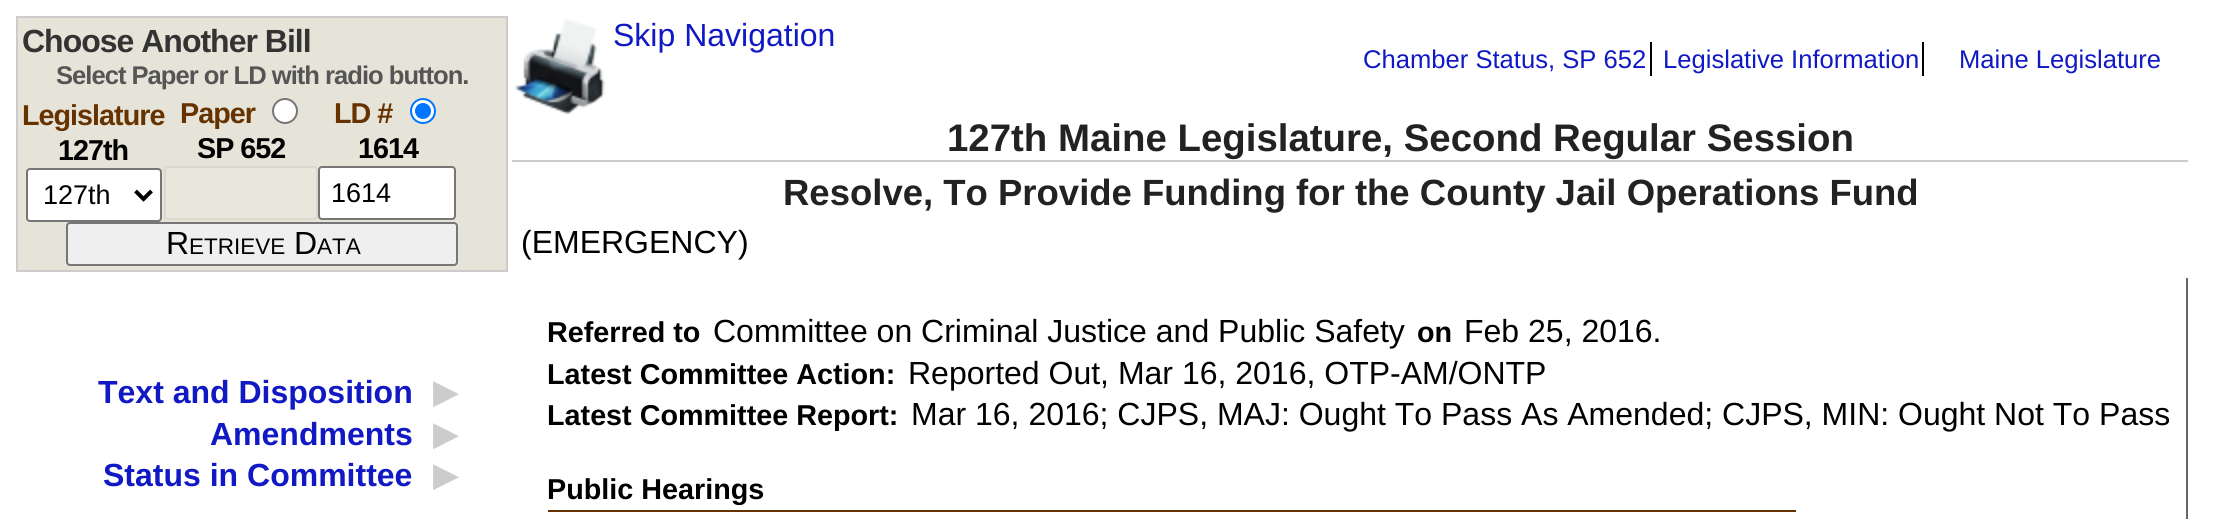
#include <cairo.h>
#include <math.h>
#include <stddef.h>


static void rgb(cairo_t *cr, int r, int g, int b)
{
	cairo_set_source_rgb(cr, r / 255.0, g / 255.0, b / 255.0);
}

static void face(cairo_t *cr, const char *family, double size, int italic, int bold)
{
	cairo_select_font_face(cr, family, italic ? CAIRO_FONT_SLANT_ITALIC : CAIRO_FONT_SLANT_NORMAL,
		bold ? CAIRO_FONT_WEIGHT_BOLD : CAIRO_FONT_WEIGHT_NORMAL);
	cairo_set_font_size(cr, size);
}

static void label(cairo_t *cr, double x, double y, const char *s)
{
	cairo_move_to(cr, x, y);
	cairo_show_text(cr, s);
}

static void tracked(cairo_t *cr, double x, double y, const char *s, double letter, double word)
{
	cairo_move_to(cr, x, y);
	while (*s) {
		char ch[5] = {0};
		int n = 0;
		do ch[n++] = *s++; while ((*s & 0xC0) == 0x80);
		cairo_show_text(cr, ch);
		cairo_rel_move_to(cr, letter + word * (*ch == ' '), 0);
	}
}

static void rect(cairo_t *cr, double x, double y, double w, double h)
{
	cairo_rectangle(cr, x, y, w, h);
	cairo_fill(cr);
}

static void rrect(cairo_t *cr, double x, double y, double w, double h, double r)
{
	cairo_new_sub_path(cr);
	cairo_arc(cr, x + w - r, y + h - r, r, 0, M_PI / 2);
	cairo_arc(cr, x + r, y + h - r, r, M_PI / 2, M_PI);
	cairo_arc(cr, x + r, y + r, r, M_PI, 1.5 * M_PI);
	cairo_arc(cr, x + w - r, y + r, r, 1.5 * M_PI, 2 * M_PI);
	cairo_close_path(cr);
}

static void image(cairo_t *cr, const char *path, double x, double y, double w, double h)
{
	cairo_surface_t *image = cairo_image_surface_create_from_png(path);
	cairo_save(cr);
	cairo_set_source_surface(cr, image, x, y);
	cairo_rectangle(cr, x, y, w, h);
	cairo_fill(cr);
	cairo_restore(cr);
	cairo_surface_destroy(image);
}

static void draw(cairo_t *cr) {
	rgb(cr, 255, 255, 255);
	cairo_paint(cr);
	rgb(cr, 230, 227, 216);
	cairo_rectangle(cr, 17, 17, 490, 254);
	cairo_fill_preserve(cr);
	rgb(cr, 204, 204, 204);
	cairo_stroke(cr);
	face(cr, "Liberation Sans", 32, 0, 1);
	rgb(cr, 51, 51, 51);
	tracked(cr, 22, 52, "Choose Another Bill", -1, 0);
	face(cr, "Liberation Sans", 25.6, 0, 1);
	rgb(cr, 85, 85, 85);
	tracked(cr, 56, 84, "Select Paper or LD with radio button.", -1, 0);
	face(cr, "Liberation Sans", 28.75, 0, 1);
	rgb(cr, 102, 51, 0);
	tracked(cr, 22, 125, "Legislature", -1, 0);
	rgb(cr, 0, 0, 0);
	tracked(cr, 58, 160, "127th", -1, 0);
	rgb(cr, 255, 255, 255);
	rrect(cr, 27, 169, 134, 52, 3);
	cairo_fill_preserve(cr);
	rgb(cr, 118, 118, 118);
	cairo_stroke(cr);
	cairo_new_path(cr);
	cairo_move_to(cr, 135.5, 191);
	cairo_line_to(cr, 143.5, 199);
	cairo_line_to(cr, 151.5, 191);
	rgb(cr, 0, 0, 0);
	cairo_set_line_width(cr, 4);
	cairo_stroke(cr);
	face(cr, "Liberation Sans", 27, 0, 0);
	label(cr, 43, 204, "127th");
	face(cr, "Liberation Sans", 28.75, 0, 1);
	rgb(cr, 102, 51, 0);
	tracked(cr, 180, 123, "Paper", -1, 0);
	rgb(cr, 255, 255, 255);
	cairo_new_path(cr);
	cairo_arc(cr, 285, 111, 12, 0, 2 * M_PI);
	cairo_fill_preserve(cr);
	rgb(cr, 118, 118, 118);
	cairo_set_line_width(cr, 2);
	cairo_stroke(cr);
	rgb(cr, 0, 0, 0);
	tracked(cr, 197, 158, "SP 652", -1, 0);
	rgb(cr, 233, 230, 220);
	rrect(cr, 165, 167, 152, 52, 3);
	cairo_fill_preserve(cr);
	rgb(cr, 219, 216, 206);
	cairo_stroke(cr);
	rgb(cr, 102, 51, 0);
	tracked(cr, 334, 123, "LD #", -1, 0);
	rgb(cr, 255, 255, 255);
	cairo_new_path(cr);
	cairo_arc(cr, 423, 111, 12, 0, 2 * M_PI);
	cairo_fill_preserve(cr);
	rgb(cr, 0, 117, 255);
	cairo_stroke(cr);
	cairo_arc(cr, 423, 111, 8, 0, 2 * M_PI);
	cairo_fill(cr);
	rgb(cr, 0, 0, 0);
	tracked(cr, 358, 158, "1614", -1, 0);
	rgb(cr, 255, 255, 255);
	rrect(cr, 319, 167, 136, 52, 3);
	cairo_fill_preserve(cr);
	rgb(cr, 118, 118, 118);
	cairo_stroke(cr);
	face(cr, "Liberation Sans", 27, 0, 0);
	rgb(cr, 0, 0, 0);
	label(cr, 331, 202, "1614");
	rgb(cr, 239, 239, 239);
	rrect(cr, 67, 223, 390, 42, 3);
	cairo_fill_preserve(cr);
	rgb(cr, 118, 118, 118);
	cairo_stroke(cr);
	face(cr, "Liberation Sans", 32, 0, 0);
	rgb(cr, 0, 0, 0);
	label(cr, 166, 254, "R");
	face(cr, "Liberation Sans", 22.5, 0, 0);
	label(cr, 189, 254, "ETRIEVE");
	face(cr, "Liberation Sans", 32, 0, 0);
	label(cr, 294, 254, "D");
	face(cr, "Liberation Sans", 22.5, 0, 0);
	label(cr, 317, 254, "ATA");
	image(cr, "image0.png", 515, 19, 90, 95);
	face(cr, "Liberation Sans", 32, 0, 0);
	rgb(cr, 16, 25, 195);
	label(cr, 613, 46, "Skip Navigation");
	rgb(cr, 0, 0, 0);
	rect(cr, 1650, 42, 2, 34);
	face(cr, "Liberation Sans", 25.6, 0, 0);
	rgb(cr, 16, 25, 195);
	label(cr, 1363, 68, "Chamber Status, SP 652");
	rgb(cr, 0, 0, 0);
	rect(cr, 1922, 42, 2, 34);
	rgb(cr, 16, 25, 195);
	label(cr, 1663, 68, "Legislative Information");
	label(cr, 1959, 68, "Maine Legislature");
	rgb(cr, 204, 204, 204);
	rect(cr, 512, 160, 1676, 2);
	face(cr, "Liberation Sans", 38.4, 0, 1);
	rgb(cr, 34, 34, 34);
	label(cr, 947, 151, "127th Maine Legislature, Second Regular Session");
	face(cr, "Liberation Sans", 36.5, 0, 1);
	label(cr, 783, 205, "Resolve, To Provide Funding for the County Jail Operations Fund");
	face(cr, "Liberation Sans", 32, 0, 0);
	rgb(cr, 0, 0, 0);
	label(cr, 521, 253, "(EMERGENCY)");
	face(cr, "Liberation Sans", 32, 0, 1);
	rgb(cr, 16, 25, 195);
	label(cr, 98, 403, "Text and Disposition");
	face(cr, "DejaVu Sans", 32, 0, 1);
	rgb(cr, 204, 204, 204);
	label(cr, 433, 403, "▶");
	face(cr, "Liberation Sans", 32, 0, 1);
	rgb(cr, 16, 25, 195);
	label(cr, 210, 445, "Amendments");
	face(cr, "DejaVu Sans", 32, 0, 1);
	rgb(cr, 204, 204, 204);
	label(cr, 433, 445, "▶");
	face(cr, "Liberation Sans", 32, 0, 1);
	rgb(cr, 16, 25, 195);
	label(cr, 103, 486, "Status in Committee");
	face(cr, "DejaVu Sans", 32, 0, 1);
	rgb(cr, 204, 204, 204);
	label(cr, 433, 486, "▶");
	rgb(cr, 102, 102, 102);
	rect(cr, 2186, 278, 2, 241);
	face(cr, "Liberation Sans", 28.75, 0, 1);
	rgb(cr, 0, 0, 0);
	label(cr, 547, 342, "Referred to");
	face(cr, "Liberation Sans", 32, 0, 0);
	label(cr, 713, 342, "Committee on Criminal Justice and Public Safety");
	face(cr, "Liberation Sans", 28.75, 0, 1);
	label(cr, 1417, 342, "on");
	face(cr, "Liberation Sans", 32, 0, 0);
	label(cr, 1464, 342, "Feb 25, 2016.");
	face(cr, "Liberation Sans", 28.75, 0, 1);
	label(cr, 547, 384, "Latest Committee Action:");
	face(cr, "Liberation Sans", 32, 0, 0);
	label(cr, 908, 384, "Reported Out, Mar 16, 2016, OTP-AM/ONTP");
	face(cr, "Liberation Sans", 28.75, 0, 1);
	label(cr, 547, 425, "Latest Committee Report:");
	face(cr, "Liberation Sans", 32, 0, 0);
	label(cr, 911, 425, "Mar 16, 2016; CJPS, MAJ: Ought To Pass As Amended; CJPS, MIN: Ought Not To Pass");
	face(cr, "Liberation Sans", 28.75, 0, 1);
	label(cr, 547, 499, "Public Hearings");
	rgb(cr, 102, 51, 0);
	rect(cr, 548, 510, 1248, 2);
}

int main(void) {
	cairo_surface_t *surface = cairo_image_surface_create(CAIRO_FORMAT_RGB24, 2219, 519);
	cairo_t *cr = cairo_create(surface);
	cairo_font_options_t *options = cairo_font_options_create();
	cairo_font_options_set_hint_metrics(options, CAIRO_HINT_METRICS_OFF);
	cairo_font_options_set_hint_style(options, CAIRO_HINT_STYLE_NONE);
	cairo_set_font_options(cr, options);
	cairo_set_miter_limit(cr, 4);
	draw(cr);
	cairo_surface_write_to_png(surface, "render.png");
	cairo_font_options_destroy(options);
	cairo_destroy(cr);
	cairo_surface_destroy(surface);
	return 0;
}
